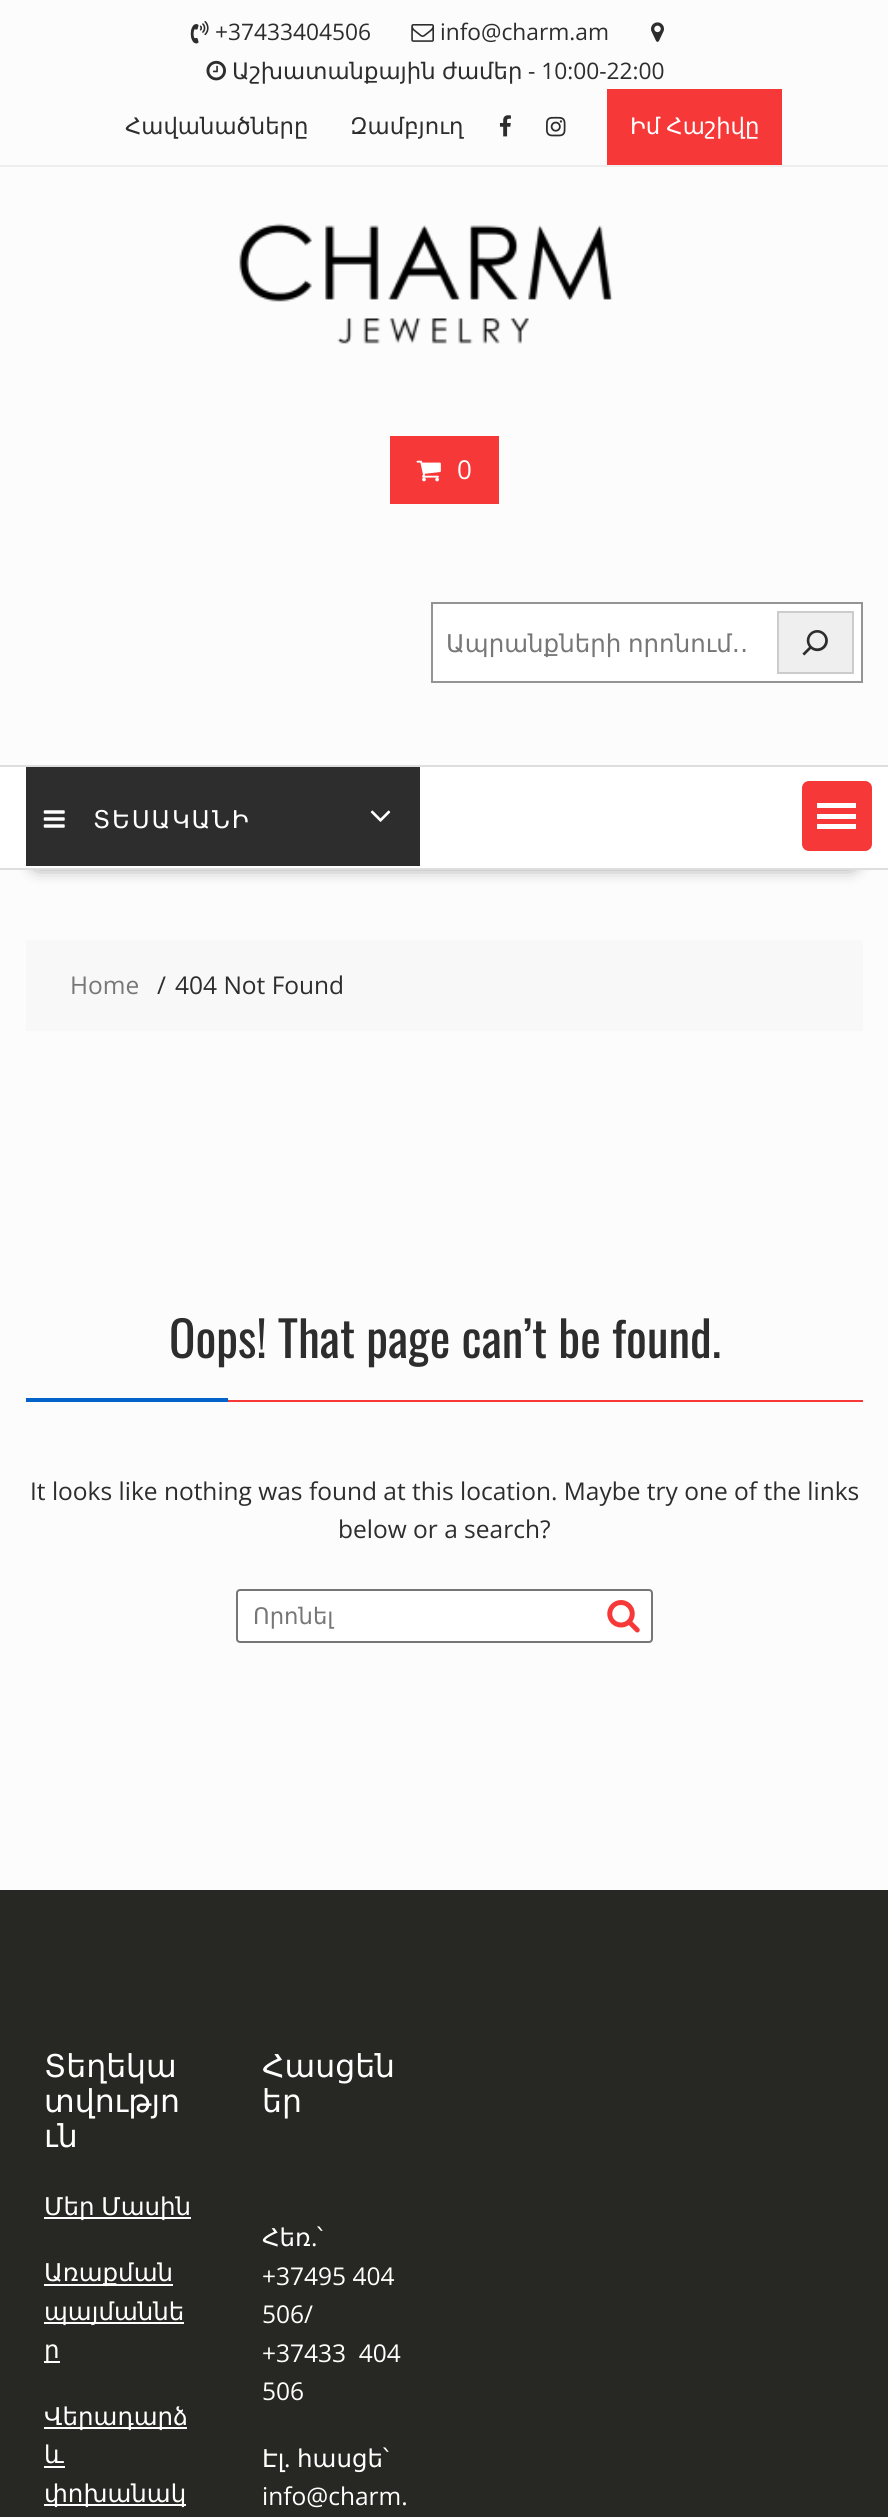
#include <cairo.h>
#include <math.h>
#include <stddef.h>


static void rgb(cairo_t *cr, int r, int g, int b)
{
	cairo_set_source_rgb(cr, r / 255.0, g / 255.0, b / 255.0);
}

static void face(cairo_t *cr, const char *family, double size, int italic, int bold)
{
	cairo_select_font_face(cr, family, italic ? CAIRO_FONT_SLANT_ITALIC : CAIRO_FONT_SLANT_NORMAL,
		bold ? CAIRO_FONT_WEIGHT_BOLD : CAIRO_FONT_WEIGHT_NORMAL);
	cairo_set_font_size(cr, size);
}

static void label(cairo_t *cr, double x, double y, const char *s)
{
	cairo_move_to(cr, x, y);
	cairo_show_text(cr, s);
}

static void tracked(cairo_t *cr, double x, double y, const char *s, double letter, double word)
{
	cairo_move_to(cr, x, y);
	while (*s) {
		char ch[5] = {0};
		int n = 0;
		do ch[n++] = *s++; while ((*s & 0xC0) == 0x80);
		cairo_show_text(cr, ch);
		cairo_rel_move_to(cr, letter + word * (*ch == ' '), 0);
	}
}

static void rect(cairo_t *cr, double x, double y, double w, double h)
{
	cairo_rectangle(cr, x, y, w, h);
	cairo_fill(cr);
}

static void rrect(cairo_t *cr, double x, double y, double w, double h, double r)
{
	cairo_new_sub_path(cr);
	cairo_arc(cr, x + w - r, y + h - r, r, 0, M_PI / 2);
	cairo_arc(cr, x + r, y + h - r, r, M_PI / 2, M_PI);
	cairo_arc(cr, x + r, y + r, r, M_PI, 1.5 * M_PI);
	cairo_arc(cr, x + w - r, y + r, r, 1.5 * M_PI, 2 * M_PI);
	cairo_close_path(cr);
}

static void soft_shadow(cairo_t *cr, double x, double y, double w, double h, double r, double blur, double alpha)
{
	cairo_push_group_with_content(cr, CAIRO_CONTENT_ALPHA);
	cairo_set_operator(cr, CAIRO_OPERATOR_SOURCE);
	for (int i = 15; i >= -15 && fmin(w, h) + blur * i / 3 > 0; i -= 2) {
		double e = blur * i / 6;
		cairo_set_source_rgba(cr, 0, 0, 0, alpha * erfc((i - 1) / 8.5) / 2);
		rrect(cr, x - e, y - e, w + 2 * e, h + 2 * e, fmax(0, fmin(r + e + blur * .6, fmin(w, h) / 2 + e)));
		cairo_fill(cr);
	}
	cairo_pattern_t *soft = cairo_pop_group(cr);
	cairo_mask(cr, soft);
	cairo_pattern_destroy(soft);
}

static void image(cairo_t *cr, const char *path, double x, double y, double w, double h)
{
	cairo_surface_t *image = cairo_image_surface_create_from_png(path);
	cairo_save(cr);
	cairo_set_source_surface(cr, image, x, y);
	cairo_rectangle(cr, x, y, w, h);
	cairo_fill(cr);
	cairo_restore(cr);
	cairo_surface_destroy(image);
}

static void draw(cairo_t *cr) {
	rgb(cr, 252, 252, 252);
	cairo_paint(cr);
	rgb(cr, 238, 238, 238);
	rect(cr, 0, 165, 888, 2);
	image(cr, "image0.png", 190, 21, 19, 23);
	face(cr, "Open Sans", 22.75, 0, 0);
	rgb(cr, 45, 45, 45);
	label(cr, 215, 40, "+37433404506");
	image(cr, "image1.png", 411, 24, 23, 18);
	label(cr, 440, 40, "info@charm.am");
	image(cr, "image2.png", 651, 22, 13, 20);
	image(cr, "image3.png", 206, 60, 20, 21);
	face(cr, "DejaVu Sans", 22.75, 0, 0);
	label(cr, 232, 79, "Աշխատանքային");
	label(cr, 442, 79, "ժամեր");
	face(cr, "Open Sans", 22.75, 0, 0);
	label(cr, 528, 79, "- 10:00-22:00");
	face(cr, "DejaVu Sans", 22.75, 0, 0);
	label(cr, 125, 134, "Հավանածները");
	label(cr, 350, 134, "Զամբյուղ");
	image(cr, "image4.png", 499, 115, 12, 22);
	image(cr, "image5.png", 546, 116, 20, 21);
	rgb(cr, 247, 56, 56);
	rect(cr, 607, 89, 175, 76);
	rgb(cr, 255, 255, 255);
	tracked(cr, 630, 134, "Իմ Հաշիվը", 0, -1);
	image(cr, "image6.png", 239, 223, 374, 121);
	rgb(cr, 247, 56, 56);
	rect(cr, 390, 436, 109, 68);
	image(cr, "image7.png", 416, 460, 25, 22);
	face(cr, "Open Sans", 26, 0, 0);
	rgb(cr, 255, 255, 255);
	label(cr, 457, 479, "0");
	cairo_rectangle(cr, 432, 603, 430, 79);
	cairo_fill_preserve(cr);
	rgb(cr, 148, 148, 148);
	cairo_stroke(cr);
	face(cr, "DejaVu Sans", 24.5, 0, 0);
	rgb(cr, 119, 119, 119);
	tracked(cr, 446, 652, "Ապրանքների որոնում․․", 0, -1);
	rgb(cr, 239, 239, 239);
	cairo_rectangle(cr, 778, 612, 75, 61);
	cairo_fill_preserve(cr);
	rgb(cr, 204, 204, 204);
	cairo_stroke(cr);
	image(cr, "image8.png", 802, 630, 26, 26);
	rgb(cr, 0, 0, 0);
	soft_shadow(cr, 37, 831, 815, 32, 0, 9.5, 0.75);
	rgb(cr, 255, 255, 255);
	rect(cr, 0, 767, 888, 101);
	rgb(cr, 222, 222, 222);
	rect(cr, 0, 765, 888, 2);
	rect(cr, 0, 868, 888, 2);
	rgb(cr, 45, 45, 45);
	rect(cr, 26, 767, 394, 99);
	image(cr, "image9.png", 43, 810, 22, 18);
	rgb(cr, 255, 255, 255);
	tracked(cr, 93, 828, "ՏԵՍԱԿԱՆԻ", 1.75, 0);
	image(cr, "image10.png", 370, 810, 21, 12);
	rgb(cr, 247, 56, 56);
	rrect(cr, 803, 782, 68, 68, 6);
	cairo_fill_preserve(cr);
	cairo_stroke(cr);
	rgb(cr, 255, 255, 255);
	rect(cr, 817, 824, 39, 5);
	rect(cr, 817, 814, 39, 5);
	rect(cr, 817, 803, 39, 5);
	rgb(cr, 248, 248, 248);
	rect(cr, 26, 940, 837, 91);
	face(cr, "Open Sans", 24.5, 0, 0);
	rgb(cr, 119, 119, 119);
	label(cr, 70, 994, "Home");
	rgb(cr, 45, 45, 45);
	label(cr, 157, 994, "/");
	label(cr, 175, 994, "404 Not Found");
	rgb(cr, 247, 56, 56);
	rect(cr, 228, 1400, 635, 2);
	face(cr, "Oswald", 49, 0, 0);
	rgb(cr, 45, 45, 45);
	label(cr, 169, 1358, "Oops! That page can’t be found.");
	rgb(cr, 2, 99, 202);
	rect(cr, 26, 1398, 202, 4);
	face(cr, "Open Sans", 24.5, 0, 0);
	rgb(cr, 45, 45, 45);
	label(cr, 30, 1500, "It looks like nothing was found at this location. Maybe try one of the links");
	label(cr, 338, 1538, "below or a search?");
	rgb(cr, 255, 255, 255);
	rrect(cr, 237, 1590, 415, 52, 3);
	cairo_fill_preserve(cr);
	rgb(cr, 118, 118, 118);
	cairo_stroke(cr);
	face(cr, "DejaVu Sans", 22.75, 0, 0);
	rgb(cr, 119, 119, 119);
	label(cr, 253, 1624, "Որոնել");
	image(cr, "image11.png", 607, 1600, 33, 33);
	rgb(cr, 39, 40, 35);
	rect(cr, 0, 1890, 888, 627);
	face(cr, "DejaVu Sans", 31.5, 0, 0);
	rgb(cr, 255, 255, 255);
	label(cr, 44, 2077, "Տեղեկա");
	label(cr, 44, 2112, "տվությո");
	label(cr, 44, 2147, "ւն");
	rect(cr, 44, 2217, 147, 2);
	face(cr, "DejaVu Sans", 24.5, 0, 0);
	tracked(cr, 44, 2215, "Մեր Մասին", 0, -1);
	rect(cr, 44, 2284, 129, 2);
	label(cr, 44, 2281, "Առաքման");
	rect(cr, 44, 2322, 140, 2);
	label(cr, 44, 2320, "պայմաննե");
	rect(cr, 44, 2361, 16, 2);
	label(cr, 44, 2358, "ր");
	rect(cr, 44, 2427, 143, 2);
	label(cr, 44, 2425, "Վերադարձ");
	label(cr, 44, 2463, "և");
	rect(cr, 44, 2466, 21, 2);
	rect(cr, 44, 2504, 142, 2);
	label(cr, 44, 2502, "փոխանակ");
	face(cr, "DejaVu Sans", 31.5, 0, 0);
	label(cr, 262, 2077, "Հասցեն");
	label(cr, 262, 2112, "եր");
	face(cr, "DejaVu Sans", 24.5, 0, 0);
	label(cr, 262, 2246, "Հեռ");
	face(cr, "Open Sans", 24.5, 0, 0);
	label(cr, 311, 2246, ".");
	face(cr, "DejaVu Sans", 24.5, 0, 0);
	label(cr, 317, 2246, "՝");
	face(cr, "Open Sans", 24.5, 0, 0);
	label(cr, 262, 2285, "+37495 404");
	label(cr, 262, 2323, "506/");
	label(cr, 262, 2362, "+37433  404");
	label(cr, 262, 2400, "506");
	face(cr, "DejaVu Sans", 24.5, 0, 0);
	label(cr, 262, 2467, "Էլ");
	face(cr, "Open Sans", 24.5, 0, 0);
	label(cr, 284, 2467, ".");
	face(cr, "DejaVu Sans", 24.5, 0, 0);
	label(cr, 297, 2467, "հասցե՝");
	face(cr, "Open Sans", 24.5, 0, 0);
	label(cr, 262, 2505, "info@charm.");
}

int main(void) {
	cairo_surface_t *surface = cairo_image_surface_create(CAIRO_FORMAT_RGB24, 888, 2517);
	cairo_t *cr = cairo_create(surface);
	cairo_font_options_t *options = cairo_font_options_create();
	cairo_font_options_set_hint_metrics(options, CAIRO_HINT_METRICS_OFF);
	cairo_font_options_set_hint_style(options, CAIRO_HINT_STYLE_NONE);
	cairo_set_font_options(cr, options);
	cairo_set_miter_limit(cr, 4);
	draw(cr);
	cairo_surface_write_to_png(surface, "render.png");
	cairo_font_options_destroy(options);
	cairo_destroy(cr);
	cairo_surface_destroy(surface);
	return 0;
}
